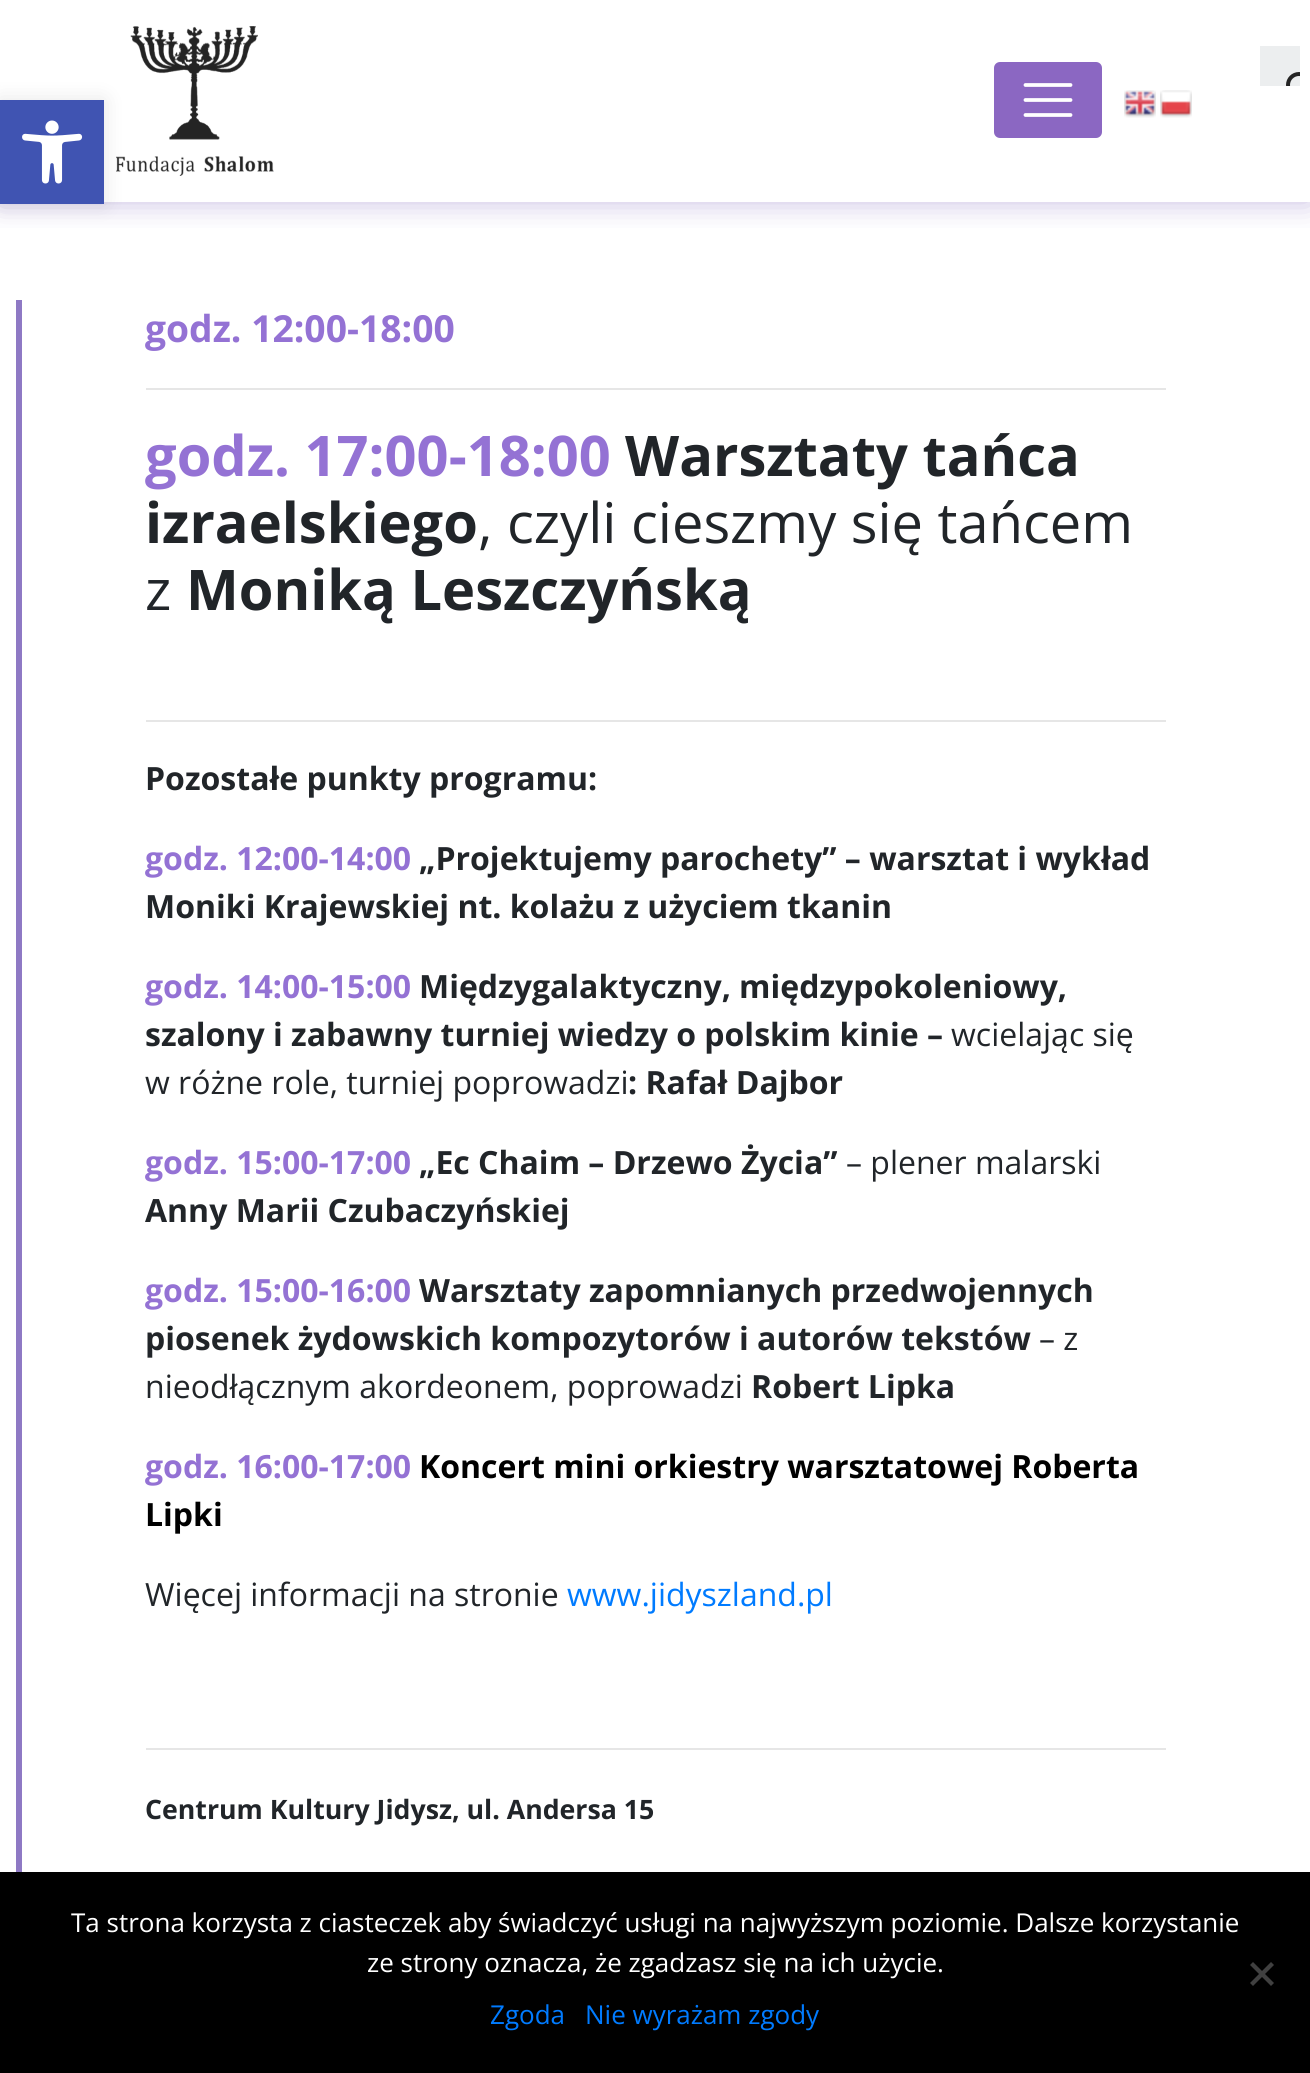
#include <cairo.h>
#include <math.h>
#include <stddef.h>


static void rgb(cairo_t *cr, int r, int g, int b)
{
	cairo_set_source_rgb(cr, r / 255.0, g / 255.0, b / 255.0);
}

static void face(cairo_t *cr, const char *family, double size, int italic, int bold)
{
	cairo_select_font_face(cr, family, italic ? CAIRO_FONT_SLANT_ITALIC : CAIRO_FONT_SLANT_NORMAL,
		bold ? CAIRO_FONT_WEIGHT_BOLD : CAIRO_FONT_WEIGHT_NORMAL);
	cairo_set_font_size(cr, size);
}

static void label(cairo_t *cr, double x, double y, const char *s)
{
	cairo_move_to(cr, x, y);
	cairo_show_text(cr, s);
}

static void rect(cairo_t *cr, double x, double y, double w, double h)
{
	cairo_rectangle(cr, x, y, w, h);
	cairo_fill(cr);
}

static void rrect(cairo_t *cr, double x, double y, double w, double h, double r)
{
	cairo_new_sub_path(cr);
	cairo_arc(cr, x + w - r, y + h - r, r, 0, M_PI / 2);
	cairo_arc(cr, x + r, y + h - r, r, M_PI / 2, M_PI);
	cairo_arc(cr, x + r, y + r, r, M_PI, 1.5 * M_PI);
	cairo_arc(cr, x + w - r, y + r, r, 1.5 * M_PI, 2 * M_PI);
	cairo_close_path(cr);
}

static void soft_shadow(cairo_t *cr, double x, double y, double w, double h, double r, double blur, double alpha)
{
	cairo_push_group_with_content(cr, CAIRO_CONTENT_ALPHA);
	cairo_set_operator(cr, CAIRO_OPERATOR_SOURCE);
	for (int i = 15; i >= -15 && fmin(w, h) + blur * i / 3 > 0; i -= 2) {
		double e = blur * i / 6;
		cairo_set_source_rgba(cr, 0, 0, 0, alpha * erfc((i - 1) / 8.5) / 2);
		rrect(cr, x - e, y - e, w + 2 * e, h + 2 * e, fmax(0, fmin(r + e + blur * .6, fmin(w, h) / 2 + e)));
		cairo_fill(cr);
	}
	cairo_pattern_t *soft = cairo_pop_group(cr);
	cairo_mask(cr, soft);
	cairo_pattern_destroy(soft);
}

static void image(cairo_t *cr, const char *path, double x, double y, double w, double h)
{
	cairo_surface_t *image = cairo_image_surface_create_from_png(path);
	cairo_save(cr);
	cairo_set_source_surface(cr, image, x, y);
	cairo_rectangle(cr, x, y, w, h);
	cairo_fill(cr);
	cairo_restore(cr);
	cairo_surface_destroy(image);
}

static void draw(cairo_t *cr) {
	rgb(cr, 255, 255, 255);
	cairo_paint(cr);
	cairo_save(cr);
	cairo_rectangle(cr, 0, 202, 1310, 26);
	cairo_clip(cr);
	rgb(cr, 142, 121, 196);
	soft_shadow(cr, 0, 0, 1310, 202, 0, 15, 0.5);
	cairo_restore(cr);
	image(cr, "image2.png", 116, 26, 158, 150);
	rgb(cr, 0, 0, 0);
	soft_shadow(cr, 0, 100, 104, 104, 0, 10, 0.1);
	rgb(cr, 64, 84, 178);
	rect(cr, 0, 100, 104, 104);
	image(cr, "image0.png", 22, 120, 61, 64);
	rgb(cr, 236, 238, 239);
	rect(cr, 1260, 46, 40, 40);
	image(cr, "image1.png", 1286, 72, 14, 14);
	rgb(cr, 139, 103, 194);
	rrect(cr, 993, 61, 110, 78, 7);
	cairo_fill_preserve(cr);
	rgb(cr, 255, 255, 255);
	cairo_stroke(cr);
	cairo_new_path(cr);
	cairo_move_to(cr, 1025.5, 85);
	cairo_line_to(cr, 1070.5, 85);
	cairo_move_to(cr, 1025.5, 100);
	cairo_line_to(cr, 1070.5, 100);
	cairo_move_to(cr, 1025.5, 115);
	cairo_line_to(cr, 1070.5, 115);
	cairo_set_line_width(cr, 3.8);
	cairo_set_line_cap(cr, CAIRO_LINE_CAP_ROUND);
	cairo_stroke(cr);
	image(cr, "image3.png", 1124, 90, 32, 28);
	image(cr, "image4.png", 1160, 90, 32, 28);
	rgb(cr, 142, 121, 196);
	rect(cr, 16, 300, 6, 1572);
	face(cr, "Open Sans", 37.25, 0, 1);
	rgb(cr, 148, 114, 212);
	label(cr, 145, 342, "godz. 12:00-18:00");
	rgb(cr, 230, 230, 230);
	rect(cr, 146, 388, 1020, 2);
	face(cr, "Open Sans", 56, 0, 1);
	rgb(cr, 148, 114, 212);
	label(cr, 145, 476, "godz. 17:00-18:00");
	rgb(cr, 33, 37, 41);
	label(cr, 625, 476, "Warsztaty tańca");
	label(cr, 145, 543, "izraelskiego");
	face(cr, "Open Sans", 56, 0, 0);
	label(cr, 478, 543, ", czyli cieszmy się tańcem");
	label(cr, 145, 610, "z");
	face(cr, "Open Sans", 56, 0, 1);
	label(cr, 186, 610, "Moniką Leszczyńską");
	rgb(cr, 230, 230, 230);
	rect(cr, 146, 720, 1020, 2);
	face(cr, "Open Sans", 32, 0, 1);
	rgb(cr, 33, 37, 41);
	label(cr, 145, 790, "Pozostałe punkty programu:");
	rgb(cr, 148, 114, 212);
	label(cr, 145, 870, "godz. 12:00-14:00");
	rgb(cr, 33, 37, 41);
	label(cr, 419, 870, "„Projektujemy parochety” – warsztat i wykład");
	label(cr, 145, 918, "Moniki Krajewskiej nt. kolażu z użyciem tkanin");
	rgb(cr, 148, 114, 212);
	label(cr, 145, 998, "godz. 14:00-15:00");
	rgb(cr, 33, 37, 41);
	label(cr, 419, 998, "Międzygalaktyczny, międzypokoleniowy,");
	label(cr, 145, 1046, "szalony i zabawny turniej wiedzy o polskim kinie –");
	face(cr, "Open Sans", 32, 0, 0);
	label(cr, 951, 1046, "wcielając się");
	label(cr, 145, 1094, "w różne role, turniej poprowadzi");
	face(cr, "Open Sans", 32, 0, 1);
	label(cr, 628, 1094, ": Rafał Dajbor");
	rgb(cr, 148, 114, 212);
	label(cr, 145, 1174, "godz. 15:00-17:00");
	rgb(cr, 33, 37, 41);
	label(cr, 419, 1174, "„Ec Chaim – Drzewo Życia”");
	face(cr, "Open Sans", 32, 0, 0);
	label(cr, 846, 1174, "– plener malarski");
	face(cr, "Open Sans", 32, 0, 1);
	label(cr, 145, 1222, "Anny Marii Czubaczyńskiej");
	rgb(cr, 148, 114, 212);
	label(cr, 145, 1302, "godz. 15:00-16:00");
	rgb(cr, 33, 37, 41);
	label(cr, 419, 1302, "Warsztaty zapomnianych przedwojennych");
	label(cr, 145, 1350, "piosenek żydowskich kompozytorów i autorów tekstów");
	face(cr, "Open Sans", 32, 0, 0);
	label(cr, 1039, 1350, "– z");
	label(cr, 145, 1398, "nieodłącznym akordeonem, poprowadzi");
	face(cr, "Open Sans", 32, 0, 1);
	label(cr, 751, 1398, "Robert Lipka");
	rgb(cr, 148, 114, 212);
	label(cr, 145, 1478, "godz. 16:00-17:00");
	rgb(cr, 0, 0, 0);
	label(cr, 419, 1478, "Koncert mini orkiestry warsztatowej Roberta");
	label(cr, 145, 1526, "Lipki");
	face(cr, "Open Sans", 32, 0, 0);
	rgb(cr, 33, 37, 41);
	label(cr, 145, 1606, "Więcej informacji na stronie");
	rgb(cr, 0, 123, 255);
	label(cr, 567, 1606, "www.jidyszland.pl");
	rgb(cr, 230, 230, 230);
	rect(cr, 146, 1748, 1020, 2);
	face(cr, "Open Sans", 26.7, 0, 1);
	rgb(cr, 33, 37, 41);
	label(cr, 145, 1819, "Centrum Kultury Jidysz, ul. Andersa 15");
	rgb(cr, 0, 0, 0);
	rect(cr, 0, 1872, 1310, 201);
	face(cr, "Open Sans", 26, 0, 0);
	rgb(cr, 255, 255, 255);
	label(cr, 71, 1932, "Ta strona korzysta z ciasteczek aby świadczyć usługi na najwyższym poziomie. Dalsze korzystanie");
	label(cr, 367, 1972, "ze strony oznacza, że zgadzasz się na ich użycie.");
	rgb(cr, 64, 64, 64);
	cairo_new_path(cr);
	cairo_move_to(cr, 1271, 1962);
	cairo_line_to(cr, 1274, 1965);
	cairo_line_to(cr, 1253, 1986);
	cairo_line_to(cr, 1250, 1983);
	cairo_close_path(cr);
	cairo_fill(cr);
	cairo_new_path(cr);
	cairo_move_to(cr, 1250, 1965);
	cairo_line_to(cr, 1253, 1962);
	cairo_line_to(cr, 1274, 1983);
	cairo_line_to(cr, 1271, 1986);
	cairo_close_path(cr);
	cairo_fill(cr);
	rgb(cr, 0, 123, 255);
	label(cr, 490, 2024, "Zgoda");
	label(cr, 585, 2024, "Nie wyrażam zgody");
}

int main(void) {
	cairo_surface_t *surface = cairo_image_surface_create(CAIRO_FORMAT_RGB24, 1310, 2073);
	cairo_t *cr = cairo_create(surface);
	cairo_font_options_t *options = cairo_font_options_create();
	cairo_font_options_set_hint_metrics(options, CAIRO_HINT_METRICS_OFF);
	cairo_font_options_set_hint_style(options, CAIRO_HINT_STYLE_NONE);
	cairo_set_font_options(cr, options);
	cairo_set_miter_limit(cr, 4);
	draw(cr);
	cairo_surface_write_to_png(surface, "render.png");
	cairo_font_options_destroy(options);
	cairo_destroy(cr);
	cairo_surface_destroy(surface);
	return 0;
}
